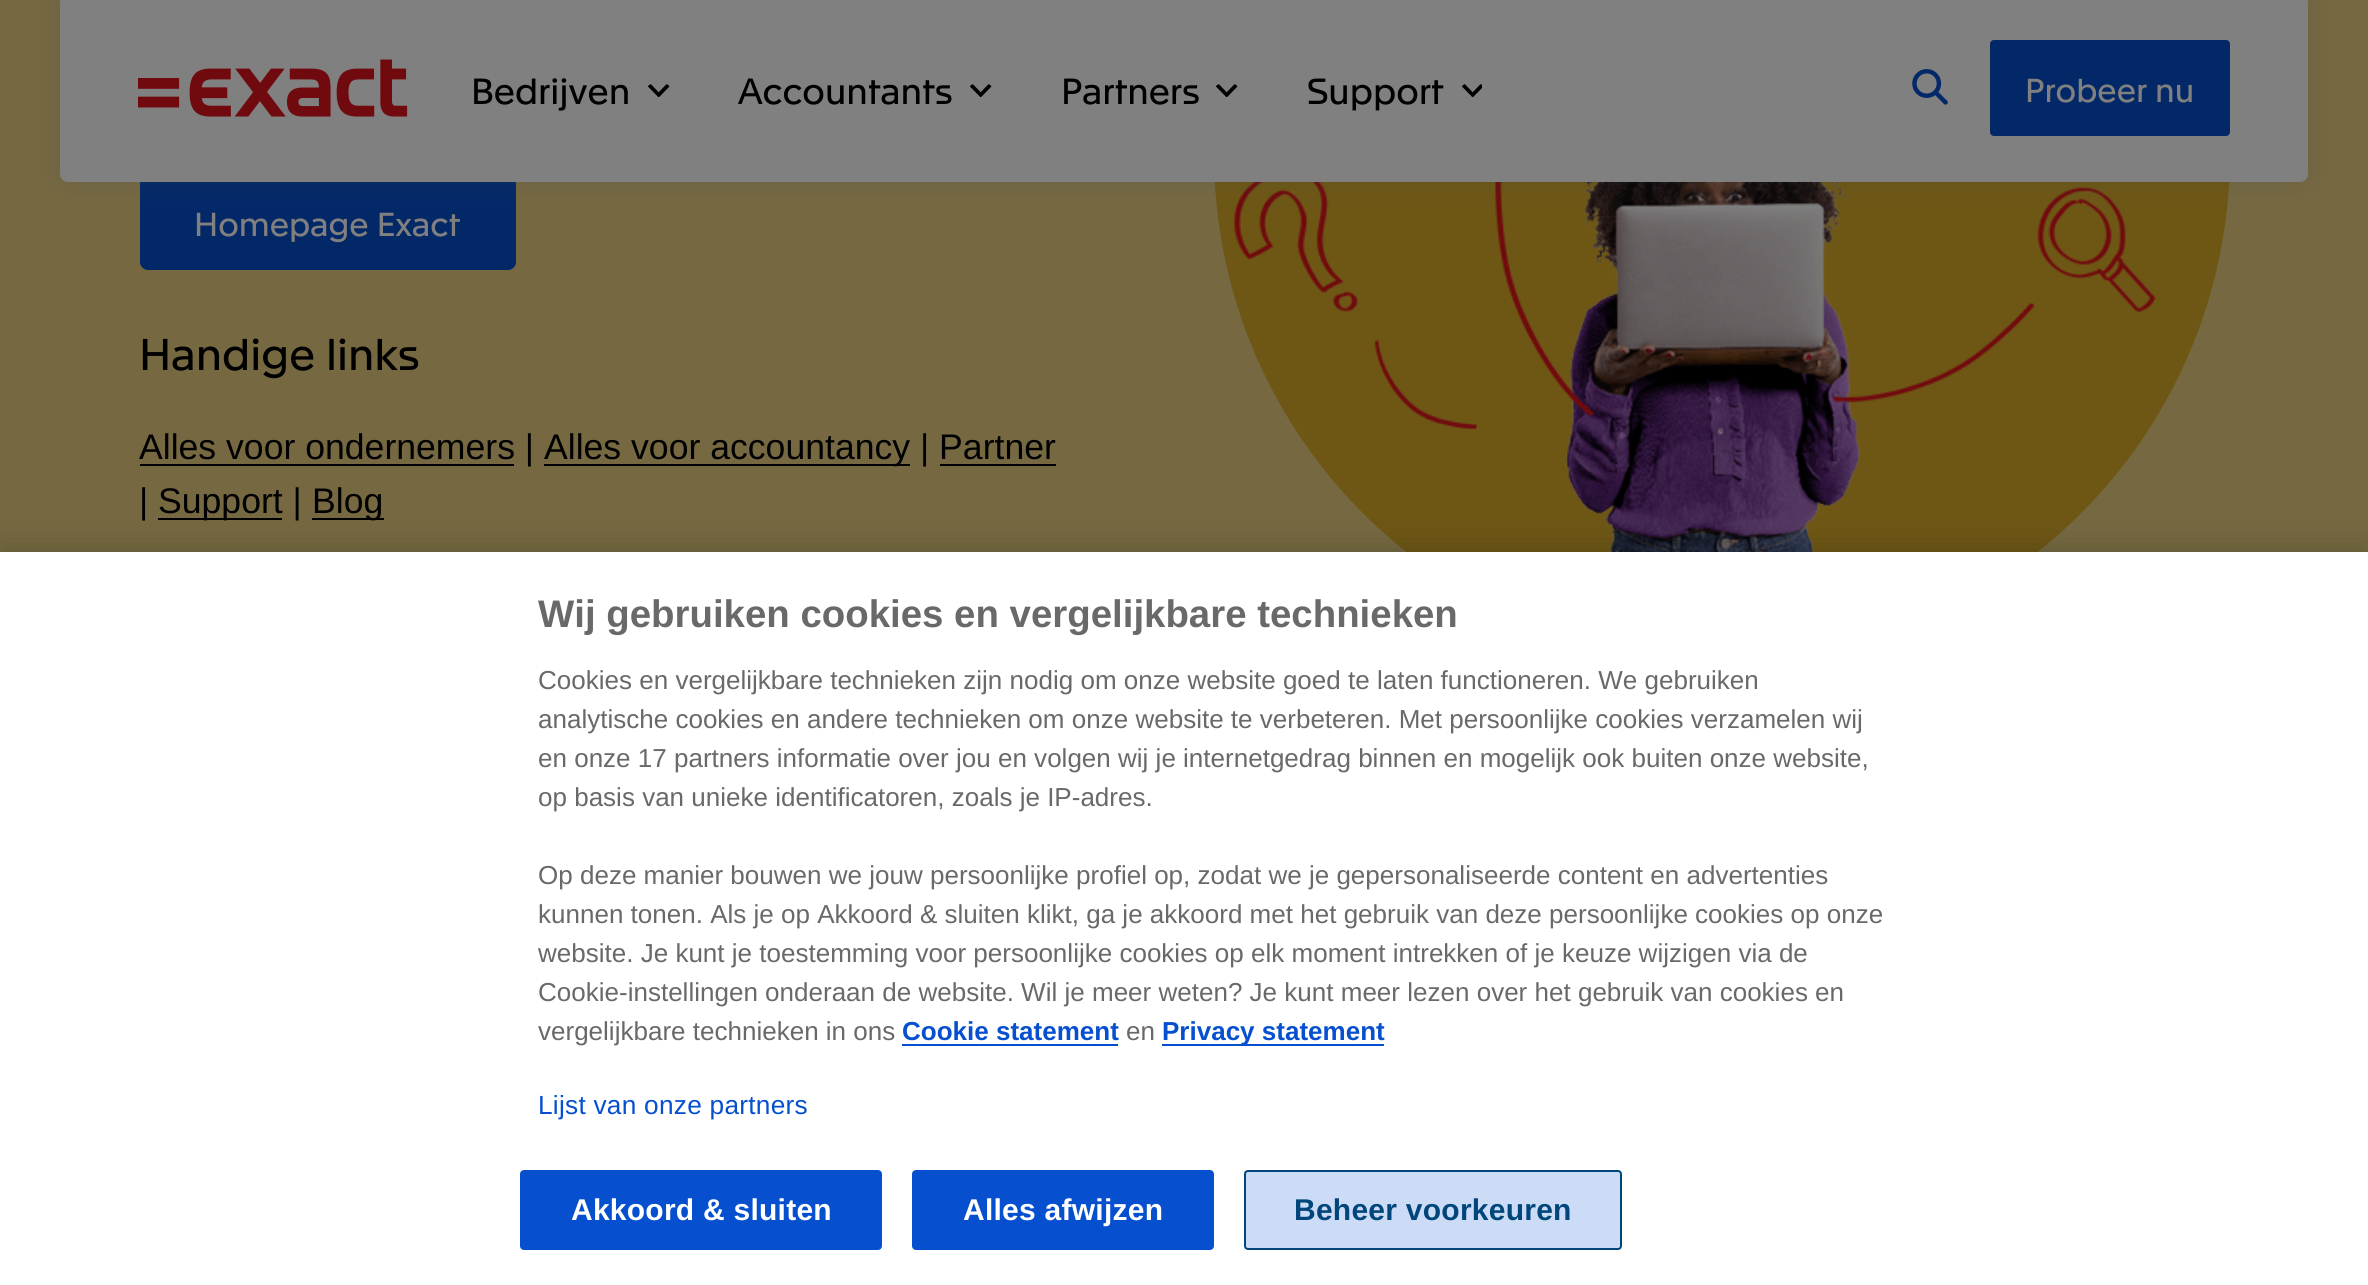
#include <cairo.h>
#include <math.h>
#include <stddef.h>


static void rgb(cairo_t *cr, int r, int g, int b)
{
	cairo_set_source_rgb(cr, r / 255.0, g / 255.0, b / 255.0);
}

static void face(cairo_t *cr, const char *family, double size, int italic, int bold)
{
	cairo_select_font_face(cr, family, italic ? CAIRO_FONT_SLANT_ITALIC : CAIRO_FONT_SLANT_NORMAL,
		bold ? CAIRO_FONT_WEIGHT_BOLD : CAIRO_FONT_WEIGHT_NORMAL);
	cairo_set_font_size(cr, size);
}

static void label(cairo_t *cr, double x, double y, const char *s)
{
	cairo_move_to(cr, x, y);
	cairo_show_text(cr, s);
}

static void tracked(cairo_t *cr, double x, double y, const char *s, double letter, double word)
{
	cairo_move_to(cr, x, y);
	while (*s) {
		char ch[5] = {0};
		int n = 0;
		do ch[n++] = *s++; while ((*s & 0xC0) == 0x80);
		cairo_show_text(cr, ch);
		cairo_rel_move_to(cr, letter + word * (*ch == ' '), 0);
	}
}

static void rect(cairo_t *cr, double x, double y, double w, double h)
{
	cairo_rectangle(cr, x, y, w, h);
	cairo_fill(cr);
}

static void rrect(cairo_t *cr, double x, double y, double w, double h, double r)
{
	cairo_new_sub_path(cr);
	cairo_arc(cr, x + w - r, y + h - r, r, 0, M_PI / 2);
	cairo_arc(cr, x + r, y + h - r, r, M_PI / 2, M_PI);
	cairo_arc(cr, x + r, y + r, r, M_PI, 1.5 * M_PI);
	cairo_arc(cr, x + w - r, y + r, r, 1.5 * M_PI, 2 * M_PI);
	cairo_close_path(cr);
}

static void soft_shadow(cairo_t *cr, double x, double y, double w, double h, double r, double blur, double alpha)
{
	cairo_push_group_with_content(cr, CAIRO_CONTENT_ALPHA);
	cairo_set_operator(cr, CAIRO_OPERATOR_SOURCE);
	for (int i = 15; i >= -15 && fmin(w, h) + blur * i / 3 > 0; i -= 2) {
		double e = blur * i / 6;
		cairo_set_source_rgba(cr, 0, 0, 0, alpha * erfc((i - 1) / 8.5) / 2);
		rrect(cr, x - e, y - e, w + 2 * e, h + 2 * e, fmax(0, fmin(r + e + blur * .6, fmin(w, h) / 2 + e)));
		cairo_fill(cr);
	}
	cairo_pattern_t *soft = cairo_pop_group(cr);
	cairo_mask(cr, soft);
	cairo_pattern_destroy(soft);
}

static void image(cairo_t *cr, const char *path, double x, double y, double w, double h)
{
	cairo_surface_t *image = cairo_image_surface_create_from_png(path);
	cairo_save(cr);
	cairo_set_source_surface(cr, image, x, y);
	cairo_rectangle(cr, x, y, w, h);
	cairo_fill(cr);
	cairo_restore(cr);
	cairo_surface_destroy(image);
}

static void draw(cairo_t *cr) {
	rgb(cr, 118, 105, 66);
	cairo_paint(cr);
	rgb(cr, 3, 40, 104);
	rrect(cr, 141, 177, 374, 92, 7);
	cairo_fill_preserve(cr);
	cairo_stroke(cr);
	rgb(cr, 110, 87, 21);
	cairo_arc(cr, 1722, 154, 508, 0, 2 * M_PI);
	cairo_fill(cr);
	image(cr, "image4.png", 1234, 182, 922, 370);
	rgb(cr, 62, 69, 77);
	soft_shadow(cr, 60, -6, 2248, 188, 8, 15, 0.2);
	rgb(cr, 128, 128, 128);
	rrect(cr, 60, -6, 2248, 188, 8);
	cairo_fill(cr);
	image(cr, "image0.png", 138, 59, 270, 58);
	face(cr, "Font", 35.6, 0, 0);
	rgb(cr, 0, 0, 0);
	label(cr, 471, 104, "Bedrijven");
	image(cr, "image1.png", 648, 84, 22, 14);
	label(cr, 738, 104, "Accountants");
	image(cr, "image1.png", 970, 84, 22, 14);
	label(cr, 1061, 104, "Partners");
	image(cr, "image1.png", 1216, 84, 22, 14);
	label(cr, 1307, 104, "Support");
	image(cr, "image2.png", 1462, 84, 20, 14);
	image(cr, "image3.png", 1912, 69, 36, 36);
	rgb(cr, 3, 40, 104);
	rrect(cr, 1990, 40, 240, 96, 4);
	cairo_fill(cr);
	face(cr, "Font", 32.5, 0, 0);
	rgb(cr, 128, 128, 128);
	label(cr, 2025, 102, "Probeer nu");
	label(cr, 194, 236, "Homepage Exact");
	face(cr, "Font", 43.5, 0, 0);
	rgb(cr, 0, 0, 0);
	label(cr, 139, 370, "Handige links");
	rect(cr, 140, 464, 374, 2);
	face(cr, "Liberation Sans", 35.6, 0, 0);
	label(cr, 139, 459, "Alles voor ondernemers |");
	rect(cr, 544, 464, 366, 2);
	label(cr, 544, 459, "Alles voor accountancy | Partner");
	rect(cr, 940, 464, 116, 2);
	label(cr, 139, 513, "|");
	rect(cr, 158, 518, 124, 2);
	label(cr, 158, 513, "Support |");
	rect(cr, 312, 518, 72, 2);
	label(cr, 312, 513, "Blog");
	rgb(cr, 0, 0, 0);
	soft_shadow(cr, 0, 552, 2368, 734, 0, 18, 0.2);
	rgb(cr, 255, 255, 255);
	rect(cr, 0, 552, 2368, 733);
	face(cr, "Liberation Sans", 38.4, 0, 1);
	rgb(cr, 105, 105, 105);
	label(cr, 538, 627, "Wij gebruiken cookies en vergelijkbare technieken");
	face(cr, "Liberation Sans", 26.02, 0, 0);
	label(cr, 538, 689, "Cookies en vergelijkbare technieken zijn nodig om onze website goed te laten functioneren. We gebruiken");
	label(cr, 538, 728, "analytische cookies en andere technieken om onze website te verbeteren. Met persoonlijke cookies verzamelen wij");
	label(cr, 538, 767, "en onze 17 partners informatie over jou en volgen wij je internetgedrag binnen en mogelijk ook buiten onze website,");
	label(cr, 538, 806, "op basis van unieke identificatoren, zoals je IP-adres.");
	label(cr, 538, 884, "Op deze manier bouwen we jouw persoonlijke profiel op, zodat we je gepersonaliseerde content en advertenties");
	label(cr, 538, 923, "kunnen tonen. Als je op Akkoord & sluiten klikt, ga je akkoord met het gebruik van deze persoonlijke cookies op onze");
	label(cr, 538, 962, "website. Je kunt je toestemming voor persoonlijke cookies op elk moment intrekken of je keuze wijzigen via de");
	label(cr, 538, 1001, "Cookie-instellingen onderaan de website. Wil je meer weten? Je kunt meer lezen over het gebruik van cookies en");
	label(cr, 538, 1040, "vergelijkbare technieken in ons");
	face(cr, "Liberation Sans", 26.02, 0, 1);
	rgb(cr, 6, 80, 208);
	label(cr, 902, 1040, "Cookie statement");
	rect(cr, 902, 1044, 216, 2);
	face(cr, "Liberation Sans", 26.02, 0, 0);
	rgb(cr, 105, 105, 105);
	label(cr, 1126, 1040, "en");
	rgb(cr, 6, 80, 208);
	rect(cr, 1162, 1044, 222, 2);
	face(cr, "Liberation Sans", 26.02, 0, 1);
	label(cr, 1162, 1040, "Privacy statement");
	face(cr, "Liberation Sans", 26.25, 0, 0);
	tracked(cr, 538, 1114, "Lijst van onze partners", 0.25, 0);
	rrect(cr, 521, 1171, 360, 78, 3);
	cairo_fill_preserve(cr);
	cairo_stroke(cr);
	face(cr, "Liberation Sans", 30, 0, 1);
	rgb(cr, 255, 255, 255);
	tracked(cr, 571, 1220, "Akkoord & sluiten", 0.25, 0);
	rgb(cr, 6, 80, 208);
	rrect(cr, 913, 1171, 300, 78, 3);
	cairo_fill_preserve(cr);
	cairo_stroke(cr);
	rgb(cr, 255, 255, 255);
	tracked(cr, 963, 1220, "Alles afwijzen", 0.25, 0);
	rgb(cr, 205, 220, 246);
	rrect(cr, 1245, 1171, 376, 78, 3);
	cairo_fill_preserve(cr);
	rgb(cr, 0, 70, 123);
	cairo_stroke(cr);
	tracked(cr, 1294, 1220, "Beheer voorkeuren", 0.25, 0);
}

int main(void) {
	cairo_surface_t *surface = cairo_image_surface_create(CAIRO_FORMAT_RGB24, 2368, 1285);
	cairo_t *cr = cairo_create(surface);
	cairo_font_options_t *options = cairo_font_options_create();
	cairo_font_options_set_hint_metrics(options, CAIRO_HINT_METRICS_OFF);
	cairo_font_options_set_hint_style(options, CAIRO_HINT_STYLE_NONE);
	cairo_set_font_options(cr, options);
	cairo_set_miter_limit(cr, 4);
	draw(cr);
	cairo_surface_write_to_png(surface, "render.png");
	cairo_font_options_destroy(options);
	cairo_destroy(cr);
	cairo_surface_destroy(surface);
	return 0;
}
